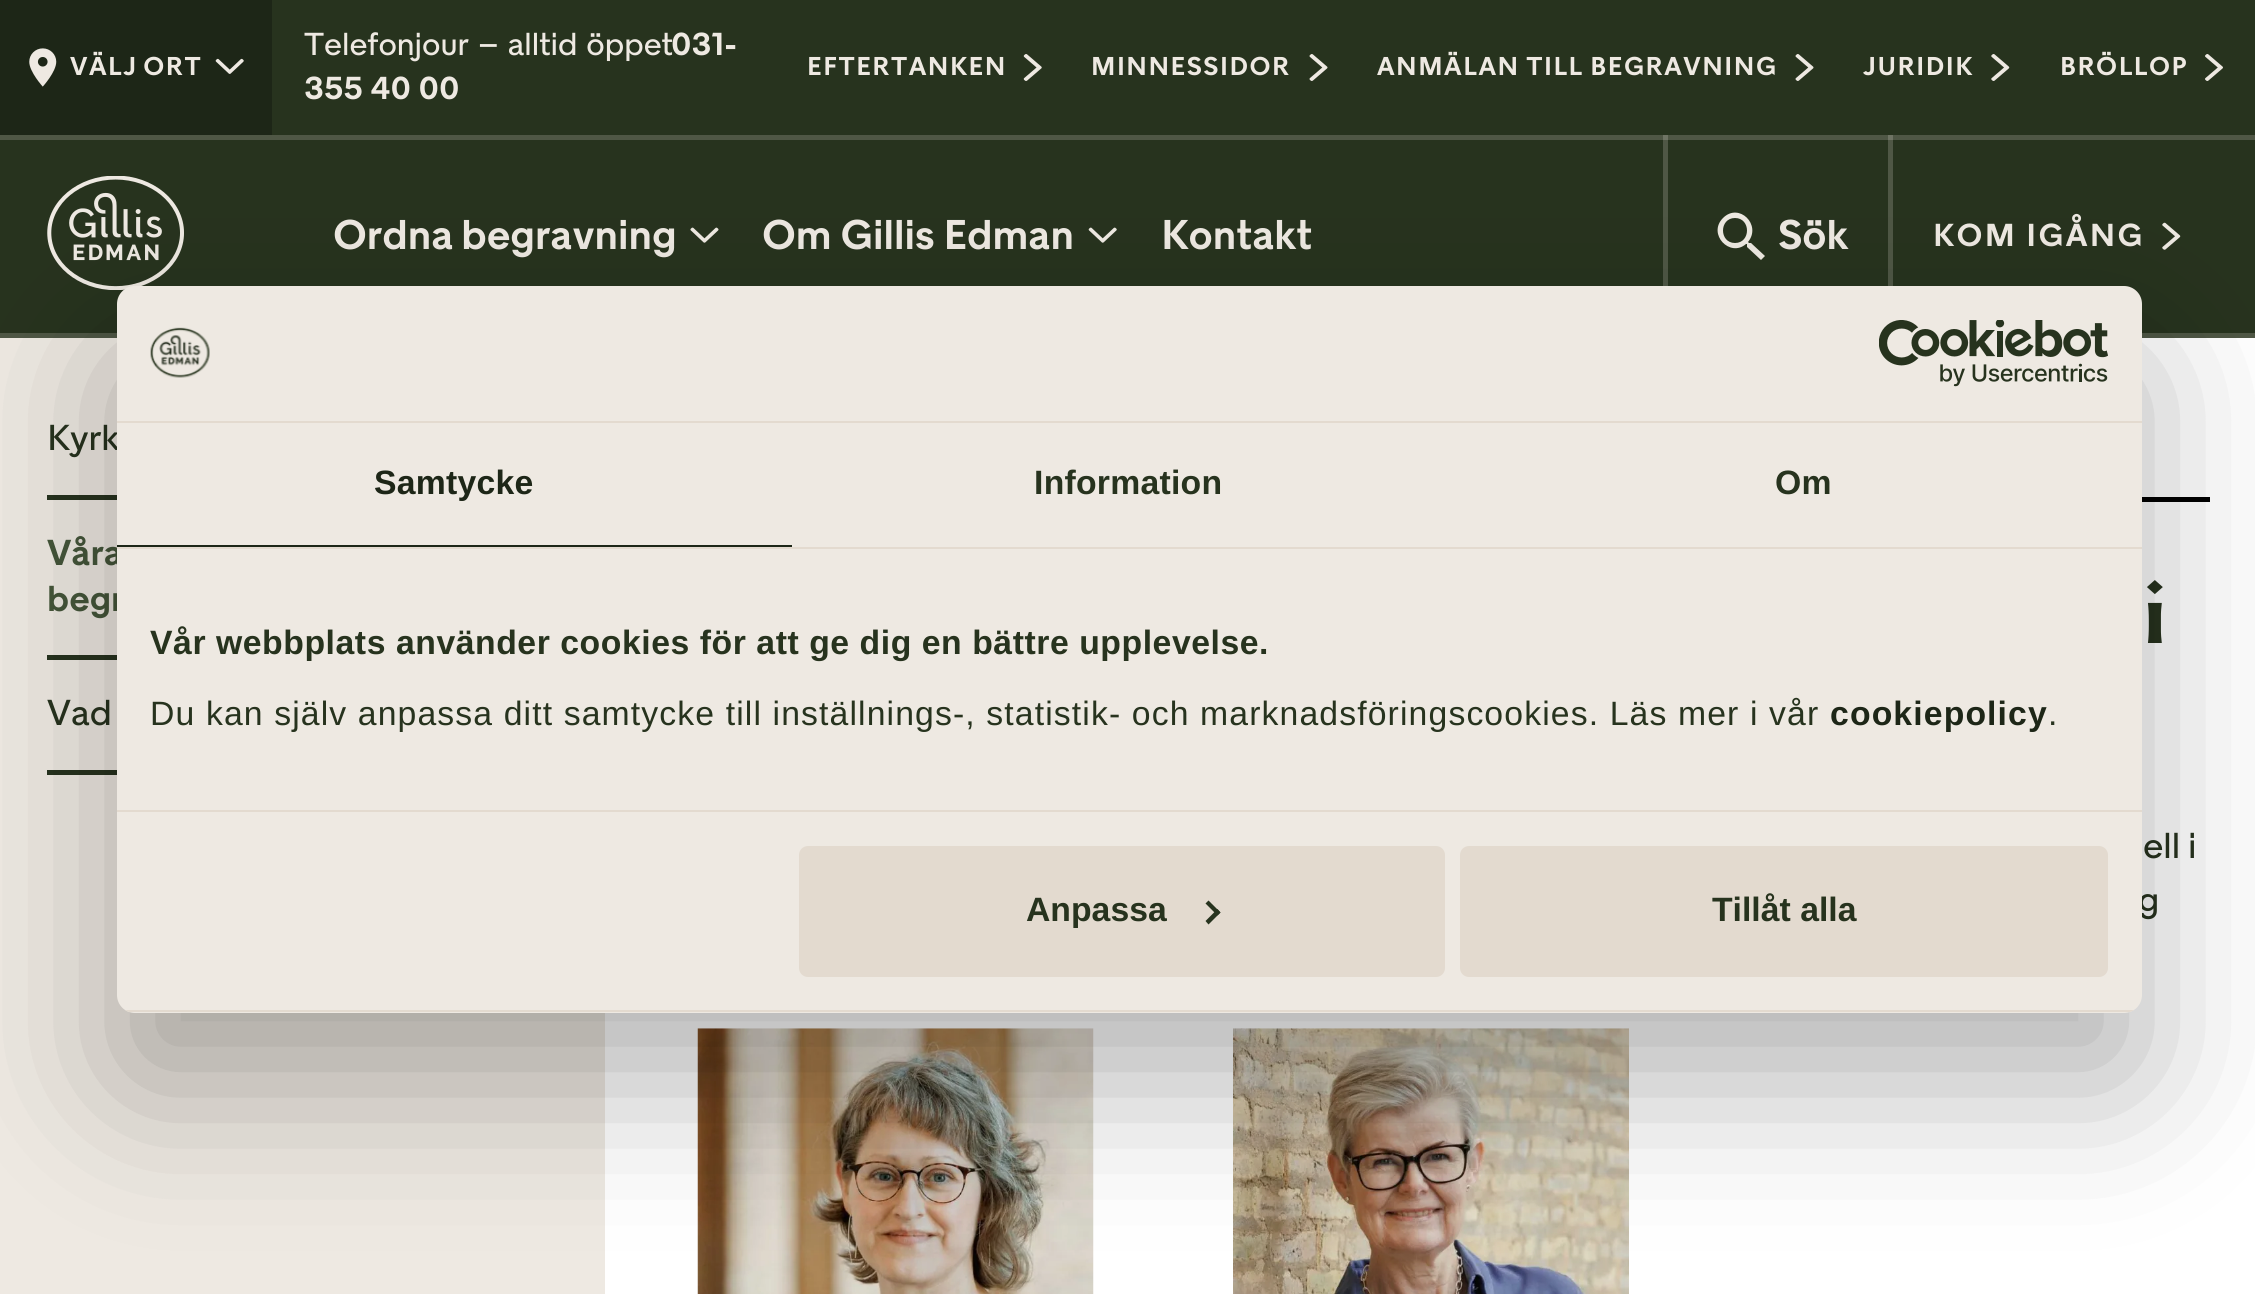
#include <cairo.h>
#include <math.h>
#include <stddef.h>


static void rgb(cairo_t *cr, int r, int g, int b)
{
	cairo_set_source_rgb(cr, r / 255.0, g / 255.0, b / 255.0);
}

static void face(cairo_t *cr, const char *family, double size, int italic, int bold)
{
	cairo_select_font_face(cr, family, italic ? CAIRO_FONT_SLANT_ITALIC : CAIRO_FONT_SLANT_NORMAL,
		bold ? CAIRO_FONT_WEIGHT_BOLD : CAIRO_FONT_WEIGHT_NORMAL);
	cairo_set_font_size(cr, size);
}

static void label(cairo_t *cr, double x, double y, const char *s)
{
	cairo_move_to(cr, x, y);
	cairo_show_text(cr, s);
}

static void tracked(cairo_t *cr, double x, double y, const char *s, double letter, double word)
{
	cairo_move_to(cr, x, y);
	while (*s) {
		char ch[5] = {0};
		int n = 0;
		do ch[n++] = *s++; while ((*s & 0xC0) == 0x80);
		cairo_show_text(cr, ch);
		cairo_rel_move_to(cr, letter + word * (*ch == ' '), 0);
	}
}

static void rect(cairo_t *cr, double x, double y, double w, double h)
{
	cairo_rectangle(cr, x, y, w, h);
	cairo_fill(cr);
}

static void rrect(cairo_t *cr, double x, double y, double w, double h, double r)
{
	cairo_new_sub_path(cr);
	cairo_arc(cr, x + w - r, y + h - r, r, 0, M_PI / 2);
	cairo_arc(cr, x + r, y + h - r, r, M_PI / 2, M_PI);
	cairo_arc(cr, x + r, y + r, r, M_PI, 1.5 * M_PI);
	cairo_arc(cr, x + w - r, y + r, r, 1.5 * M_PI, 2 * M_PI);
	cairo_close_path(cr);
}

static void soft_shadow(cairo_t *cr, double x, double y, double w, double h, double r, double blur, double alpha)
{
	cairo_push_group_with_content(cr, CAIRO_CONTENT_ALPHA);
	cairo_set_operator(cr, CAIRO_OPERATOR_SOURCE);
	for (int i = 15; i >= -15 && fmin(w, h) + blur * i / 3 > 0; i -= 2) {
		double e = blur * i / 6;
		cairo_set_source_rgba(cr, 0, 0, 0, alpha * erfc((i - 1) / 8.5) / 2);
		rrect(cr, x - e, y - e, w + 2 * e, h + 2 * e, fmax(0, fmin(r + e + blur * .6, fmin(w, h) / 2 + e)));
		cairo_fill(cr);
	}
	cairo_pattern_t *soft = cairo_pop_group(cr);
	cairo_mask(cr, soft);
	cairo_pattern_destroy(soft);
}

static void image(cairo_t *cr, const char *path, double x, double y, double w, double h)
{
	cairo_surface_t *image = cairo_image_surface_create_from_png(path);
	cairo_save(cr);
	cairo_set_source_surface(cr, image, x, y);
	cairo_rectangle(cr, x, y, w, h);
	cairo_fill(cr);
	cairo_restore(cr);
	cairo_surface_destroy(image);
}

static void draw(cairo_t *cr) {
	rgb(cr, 255, 255, 255);
	cairo_paint(cr);
	rgb(cr, 39, 51, 30);
	rect(cr, 272, 0, 1983, 135);
	rgb(cr, 29, 38, 23);
	rect(cr, 0, 0, 272, 135);
	image(cr, "image0.png", 29, 48, 28, 39);
	face(cr, "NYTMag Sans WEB", 25.75, 0, 1);
	rgb(cr, 238, 233, 226);
	tracked(cr, 70, 75, "VÄLJ ORT", 1.5, -2);
	image(cr, "image1.png", 215, 58, 29, 16);
	face(cr, "NYTMag Sans WEB Medium", 31.75, 0, 0);
	tracked(cr, 304, 55, "Telefonjour – alltid öppet", 0, 1);
	face(cr, "NYTMag Sans WEB", 31.75, 0, 1);
	label(cr, 671, 55, "031-");
	label(cr, 304, 99, "355 40 00");
	face(cr, "NYTMag Sans WEB", 25.75, 0, 1);
	tracked(cr, 807, 75, "EFTERTANKEN", 1.5, 0);
	image(cr, "image2.png", 1023, 54, 19, 27);
	tracked(cr, 1091, 75, "MINNESSIDOR", 1.5, 0);
	image(cr, "image3.png", 1309, 54, 19, 27);
	tracked(cr, 1377, 75, "ANMÄLAN TILL BEGRAVNING", 1.5, -1);
	image(cr, "image3.png", 1795, 54, 19, 27);
	tracked(cr, 1863, 75, "JURIDIK", 1.5, 0);
	image(cr, "image4.png", 1991, 54, 19, 27);
	tracked(cr, 2060, 75, "BRÖLLOP", 1.5, 0);
	image(cr, "image5.png", 2205, 54, 18, 27);
	rgb(cr, 39, 51, 30);
	rect(cr, 0, 140, 2255, 193);
	rgb(cr, 79, 87, 69);
	rect(cr, 1888, 135, 5, 151);
	rect(cr, 1663, 135, 5, 151);
	rect(cr, 0, 333, 2255, 5);
	rect(cr, 0, 135, 2255, 5);
	rgb(cr, 111, 116, 100);
	rect(cr, 1888, 135, 5, 5);
	rect(cr, 1663, 135, 5, 5);
	image(cr, "image6.png", 47, 176, 137, 114);
	face(cr, "NYTMag Sans WEB", 41.5, 0, 1);
	rgb(cr, 238, 233, 226);
	tracked(cr, 333, 249, "Ordna begravning", 0, -2);
	image(cr, "image7.png", 690, 227, 29, 16);
	tracked(cr, 762, 249, "Om Gillis Edman", 0, -1);
	image(cr, "image8.png", 1088, 227, 29, 16);
	label(cr, 1161, 249, "Kontakt");
	cairo_new_path(cr);
	cairo_move_to(cr, 1751, 243);
	cairo_line_to(cr, 1749, 243);
	cairo_line_to(cr, 1748, 242);
	cairo_curve_to(cr, 1762, 225, 1739, 202, 1723, 218);
	cairo_curve_to(cr, 1707, 234, 1730, 258, 1746, 244);
	cairo_line_to(cr, 1747, 244);
	cairo_line_to(cr, 1747, 247);
	cairo_line_to(cr, 1761, 260);
	cairo_line_to(cr, 1765, 256);
	cairo_close_path(cr);
	cairo_move_to(cr, 1735, 243);
	cairo_curve_to(cr, 1719, 243, 1719, 218, 1735, 218);
	cairo_curve_to(cr, 1751, 218, 1751, 243, 1735, 243);
	cairo_close_path(cr);
	cairo_fill(cr);
	label(cr, 1778, 249, "Sök");
	face(cr, "NYTMag Sans WEB", 31.75, 0, 1);
	tracked(cr, 1933, 246, "KOM IGÅNG", 2.4, -1);
	image(cr, "image9.png", 2162, 222, 19, 28);
	rect(cr, 0, 338, 536, 956);
	rgb(cr, 39, 51, 30);
	rect(cr, 47, 495, 70, 5);
	face(cr, "NYTMag Sans WEB Medium", 36, 0, 0);
	tracked(cr, 47, 450, "Kyrk", 0, -2);
	rect(cr, 47, 655, 70, 5);
	face(cr, "NYTMag Sans WEB", 36, 0, 1);
	rgb(cr, 69, 86, 58);
	label(cr, 47, 565, "Våra");
	label(cr, 47, 611, "begr");
	rgb(cr, 39, 51, 30);
	rect(cr, 47, 770, 70, 5);
	face(cr, "NYTMag Sans WEB Medium", 36, 0, 0);
	tracked(cr, 47, 725, "Vad", 0, -2);
	rgb(cr, 238, 233, 226);
	rect(cr, 536, 1013, 69, 281);
	rgb(cr, 0, 0, 0);
	rect(cr, 2142, 497, 68, 5);
	face(cr, "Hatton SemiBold", 83, 0, 0);
	rgb(cr, 39, 51, 30);
	label(cr, 2142, 643, "i");
	face(cr, "NYTMag Sans WEB Medium", 36, 0, 0);
	tracked(cr, 2143, 858, "ell i", 0, -1);
	tracked(cr, 2138, 912, "g", 0, -1);
	image(cr, "image10.png", 697, 1028, 397, 266);
	image(cr, "image11.png", 1233, 1028, 396, 266);
	rgb(cr, 0, 0, 0);
	soft_shadow(cr, 117, 358, 2025, 727, 18, 76.5, 0.3);
	rgb(cr, 238, 233, 226);
	rrect(cr, 117, 286, 2025, 727, 18);
	cairo_fill(cr);
	rgb(cr, 227, 218, 207);
	rect(cr, 117, 421, 2025, 2);
	image(cr, "image12.png", 150, 327, 60, 51);
	image(cr, "image13.png", 1879, 320, 229, 67);
	rect(cr, 117, 547, 2025, 2);
	rgb(cr, 29, 38, 23);
	rect(cr, 117, 545, 675, 2);
	face(cr, "Liberation Sans", 33.75, 0, 1);
	tracked(cr, 374, 494, "Samtycke", 0.25, 0);
	rgb(cr, 39, 51, 30);
	tracked(cr, 1034, 494, "Information", 0.25, 0);
	tracked(cr, 1775, 494, "Om", 0.25, 0);
	rgb(cr, 227, 218, 207);
	rect(cr, 117, 810, 2025, 2);
	rgb(cr, 39, 51, 30);
	tracked(cr, 150, 654, "Vår webbplats använder cookies för att ge dig en bättre upplevelse.", 0.55, 0);
	face(cr, "Liberation Sans", 33.75, 0, 0);
	tracked(cr, 150, 725, "Du kan själv anpassa ditt samtycke till inställnings-, statistik- och marknadsföringscookies. Läs mer i vår", 1.12, 0);
	face(cr, "Liberation Sans", 33.75, 0, 1);
	rgb(cr, 29, 38, 23);
	tracked(cr, 1830, 725, "cookiepolicy", 1.12, 0);
	face(cr, "Liberation Sans", 33.75, 0, 0);
	rgb(cr, 39, 51, 30);
	tracked(cr, 2048, 725, ".", 1.12, 0);
	cairo_save(cr);
	rrect(cr, 117, 286, 2025, 727, 18);
	cairo_clip(cr);
	rgb(cr, 227, 218, 207);
	rect(cr, 117, 1010, 2025, 2);
	cairo_restore(cr);
	rgb(cr, 227, 218, 207);
	rrect(cr, 801.5, 848.5, 641, 126, 6.5);
	cairo_fill_preserve(cr);
	cairo_set_line_width(cr, 5);
	cairo_stroke(cr);
	face(cr, "Liberation Sans", 33.75, 0, 1);
	rgb(cr, 39, 51, 30);
	label(cr, 1026, 921, "Anpassa");
	cairo_new_path(cr);
	cairo_move_to(cr, 1208.5, 900.5);
	cairo_line_to(cr, 1220.5, 912.5);
	cairo_line_to(cr, 1217.5, 915.5);
	cairo_line_to(cr, 1205.5, 903.5);
	cairo_close_path(cr);
	cairo_fill(cr);
	cairo_new_path(cr);
	cairo_move_to(cr, 1217.5, 909);
	cairo_line_to(cr, 1220.5, 912.5);
	cairo_line_to(cr, 1208.5, 924.5);
	cairo_line_to(cr, 1205.5, 921);
	cairo_close_path(cr);
	cairo_fill(cr);
	rgb(cr, 227, 218, 207);
	rrect(cr, 1462.5, 848.5, 643, 126, 6.5);
	cairo_fill_preserve(cr);
	cairo_stroke(cr);
	rgb(cr, 39, 51, 30);
	label(cr, 1712, 921, "Tillåt alla");
}

int main(void) {
	cairo_surface_t *surface = cairo_image_surface_create(CAIRO_FORMAT_RGB24, 2255, 1294);
	cairo_t *cr = cairo_create(surface);
	cairo_font_options_t *options = cairo_font_options_create();
	cairo_font_options_set_hint_metrics(options, CAIRO_HINT_METRICS_OFF);
	cairo_font_options_set_hint_style(options, CAIRO_HINT_STYLE_NONE);
	cairo_set_font_options(cr, options);
	cairo_set_miter_limit(cr, 4);
	draw(cr);
	cairo_surface_write_to_png(surface, "render.png");
	cairo_font_options_destroy(options);
	cairo_destroy(cr);
	cairo_surface_destroy(surface);
	return 0;
}
